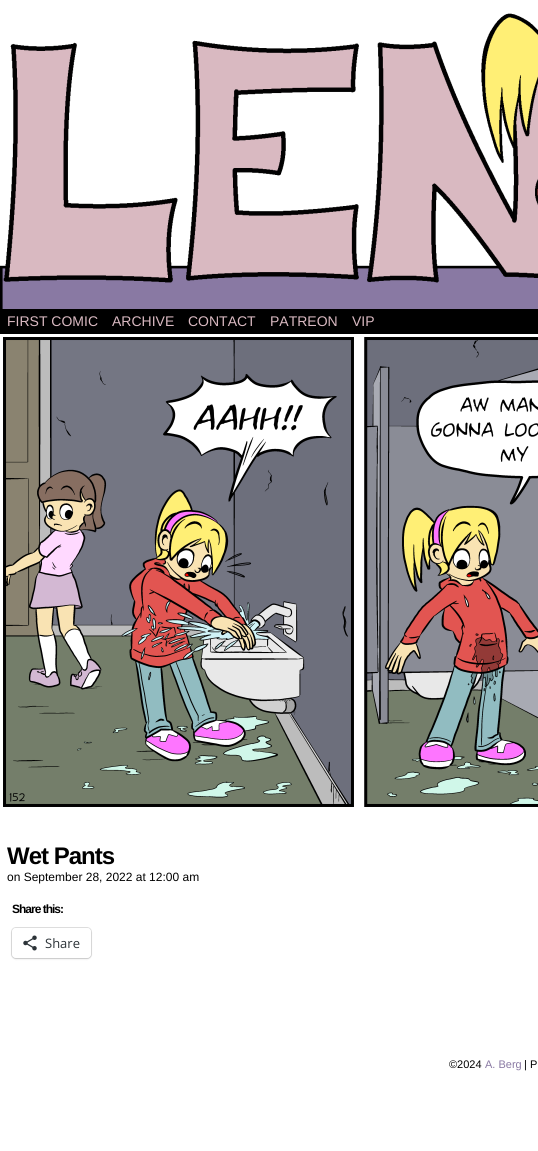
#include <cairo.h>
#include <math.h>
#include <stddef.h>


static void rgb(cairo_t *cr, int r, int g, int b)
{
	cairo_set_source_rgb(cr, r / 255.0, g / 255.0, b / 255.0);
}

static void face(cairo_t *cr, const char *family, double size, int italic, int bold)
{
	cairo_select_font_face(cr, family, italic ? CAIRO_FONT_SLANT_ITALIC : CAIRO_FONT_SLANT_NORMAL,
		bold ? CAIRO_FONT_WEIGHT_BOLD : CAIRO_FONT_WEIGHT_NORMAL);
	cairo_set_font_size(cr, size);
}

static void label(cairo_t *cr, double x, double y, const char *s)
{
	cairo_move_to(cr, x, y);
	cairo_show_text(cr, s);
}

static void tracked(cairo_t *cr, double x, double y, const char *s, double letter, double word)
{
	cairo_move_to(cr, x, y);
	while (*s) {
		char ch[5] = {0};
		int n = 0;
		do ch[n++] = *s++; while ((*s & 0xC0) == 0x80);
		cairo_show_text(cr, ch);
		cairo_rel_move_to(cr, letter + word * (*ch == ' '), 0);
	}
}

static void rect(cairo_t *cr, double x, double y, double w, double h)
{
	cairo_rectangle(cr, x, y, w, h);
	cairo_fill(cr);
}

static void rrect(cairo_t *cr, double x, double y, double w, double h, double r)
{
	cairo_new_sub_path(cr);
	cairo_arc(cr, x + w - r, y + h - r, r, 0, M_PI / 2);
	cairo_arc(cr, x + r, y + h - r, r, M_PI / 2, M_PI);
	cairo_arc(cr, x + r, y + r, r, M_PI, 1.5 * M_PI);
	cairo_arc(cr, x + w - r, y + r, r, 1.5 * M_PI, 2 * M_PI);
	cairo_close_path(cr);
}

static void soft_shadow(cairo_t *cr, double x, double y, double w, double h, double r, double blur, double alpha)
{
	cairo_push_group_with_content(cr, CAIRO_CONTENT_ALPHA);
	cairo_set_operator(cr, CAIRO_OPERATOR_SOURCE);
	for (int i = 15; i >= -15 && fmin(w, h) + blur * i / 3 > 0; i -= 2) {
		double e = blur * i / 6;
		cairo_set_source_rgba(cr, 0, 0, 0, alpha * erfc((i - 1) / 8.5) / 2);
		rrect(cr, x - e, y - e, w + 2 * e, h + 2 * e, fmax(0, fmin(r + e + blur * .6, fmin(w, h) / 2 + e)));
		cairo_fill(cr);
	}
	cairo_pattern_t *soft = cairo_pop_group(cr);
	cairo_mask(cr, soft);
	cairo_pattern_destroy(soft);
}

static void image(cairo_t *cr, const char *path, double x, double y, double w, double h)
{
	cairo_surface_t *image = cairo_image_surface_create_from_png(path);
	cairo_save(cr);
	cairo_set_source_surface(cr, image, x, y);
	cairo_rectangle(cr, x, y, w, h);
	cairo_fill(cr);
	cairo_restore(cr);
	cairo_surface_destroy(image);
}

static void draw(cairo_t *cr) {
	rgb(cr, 255, 255, 255);
	cairo_paint(cr);
	image(cr, "image0.png", 0, 13, 538, 296);
	rgb(cr, 0, 0, 0);
	rect(cr, 0, 309, 538, 25);
	face(cr, "Liberation Sans", 14, 0, 0);
	rgb(cr, 217, 185, 193);
	label(cr, 7, 326, "FIRST COMIC");
	label(cr, 112, 326, "ARCHIVE");
	label(cr, 188, 326, "CONTACT");
	label(cr, 270, 326, "PATREON");
	label(cr, 352, 326, "VIP");
	image(cr, "image1.png", 3, 337, 535, 470);
	face(cr, "Liberation Sans", 24, 0, 1);
	rgb(cr, 0, 0, 0);
	tracked(cr, 7, 864, "Wet Pants", -1, 0);
	face(cr, "Liberation Sans", 12, 0, 0);
	label(cr, 7, 881, "on September 28, 2022 at 12:00 am");
	face(cr, "Liberation Sans", 12, 0, 1);
	tracked(cr, 12, 913, "Share this:", -1, 0);
	rrect(cr, 11.5, 927.5, 80, 31, 4.5);
	rgb(cr, 224, 224, 224);
	cairo_set_line_width(cr, 1);
	cairo_stroke(cr);
	rgb(cr, 0, 0, 0);
	soft_shadow(cr, 12, 929, 79, 30, 4, 1, 0.12);
	rgb(cr, 255, 255, 255);
	rrect(cr, 12, 928, 79, 30, 4);
	cairo_fill(cr);
	image(cr, "image2.png", 23, 935, 14, 16);
	face(cr, "Open Sans", 13, 0, 0);
	rgb(cr, 44, 51, 56);
	label(cr, 45, 948, "Share");
	face(cr, "Liberation Sans", 11, 0, 0);
	rgb(cr, 0, 0, 0);
	label(cr, 449, 1068, "©2024");
	rgb(cr, 137, 121, 163);
	label(cr, 485, 1068, "A. Berg");
	rgb(cr, 0, 0, 0);
	label(cr, 524, 1068, "| P");
}

int main(void) {
	cairo_surface_t *surface = cairo_image_surface_create(CAIRO_FORMAT_RGB24, 538, 1151);
	cairo_t *cr = cairo_create(surface);
	cairo_font_options_t *options = cairo_font_options_create();
	cairo_font_options_set_hint_metrics(options, CAIRO_HINT_METRICS_OFF);
	cairo_font_options_set_hint_style(options, CAIRO_HINT_STYLE_NONE);
	cairo_set_font_options(cr, options);
	cairo_set_miter_limit(cr, 4);
	draw(cr);
	cairo_surface_write_to_png(surface, "render.png");
	cairo_font_options_destroy(options);
	cairo_destroy(cr);
	cairo_surface_destroy(surface);
	return 0;
}
